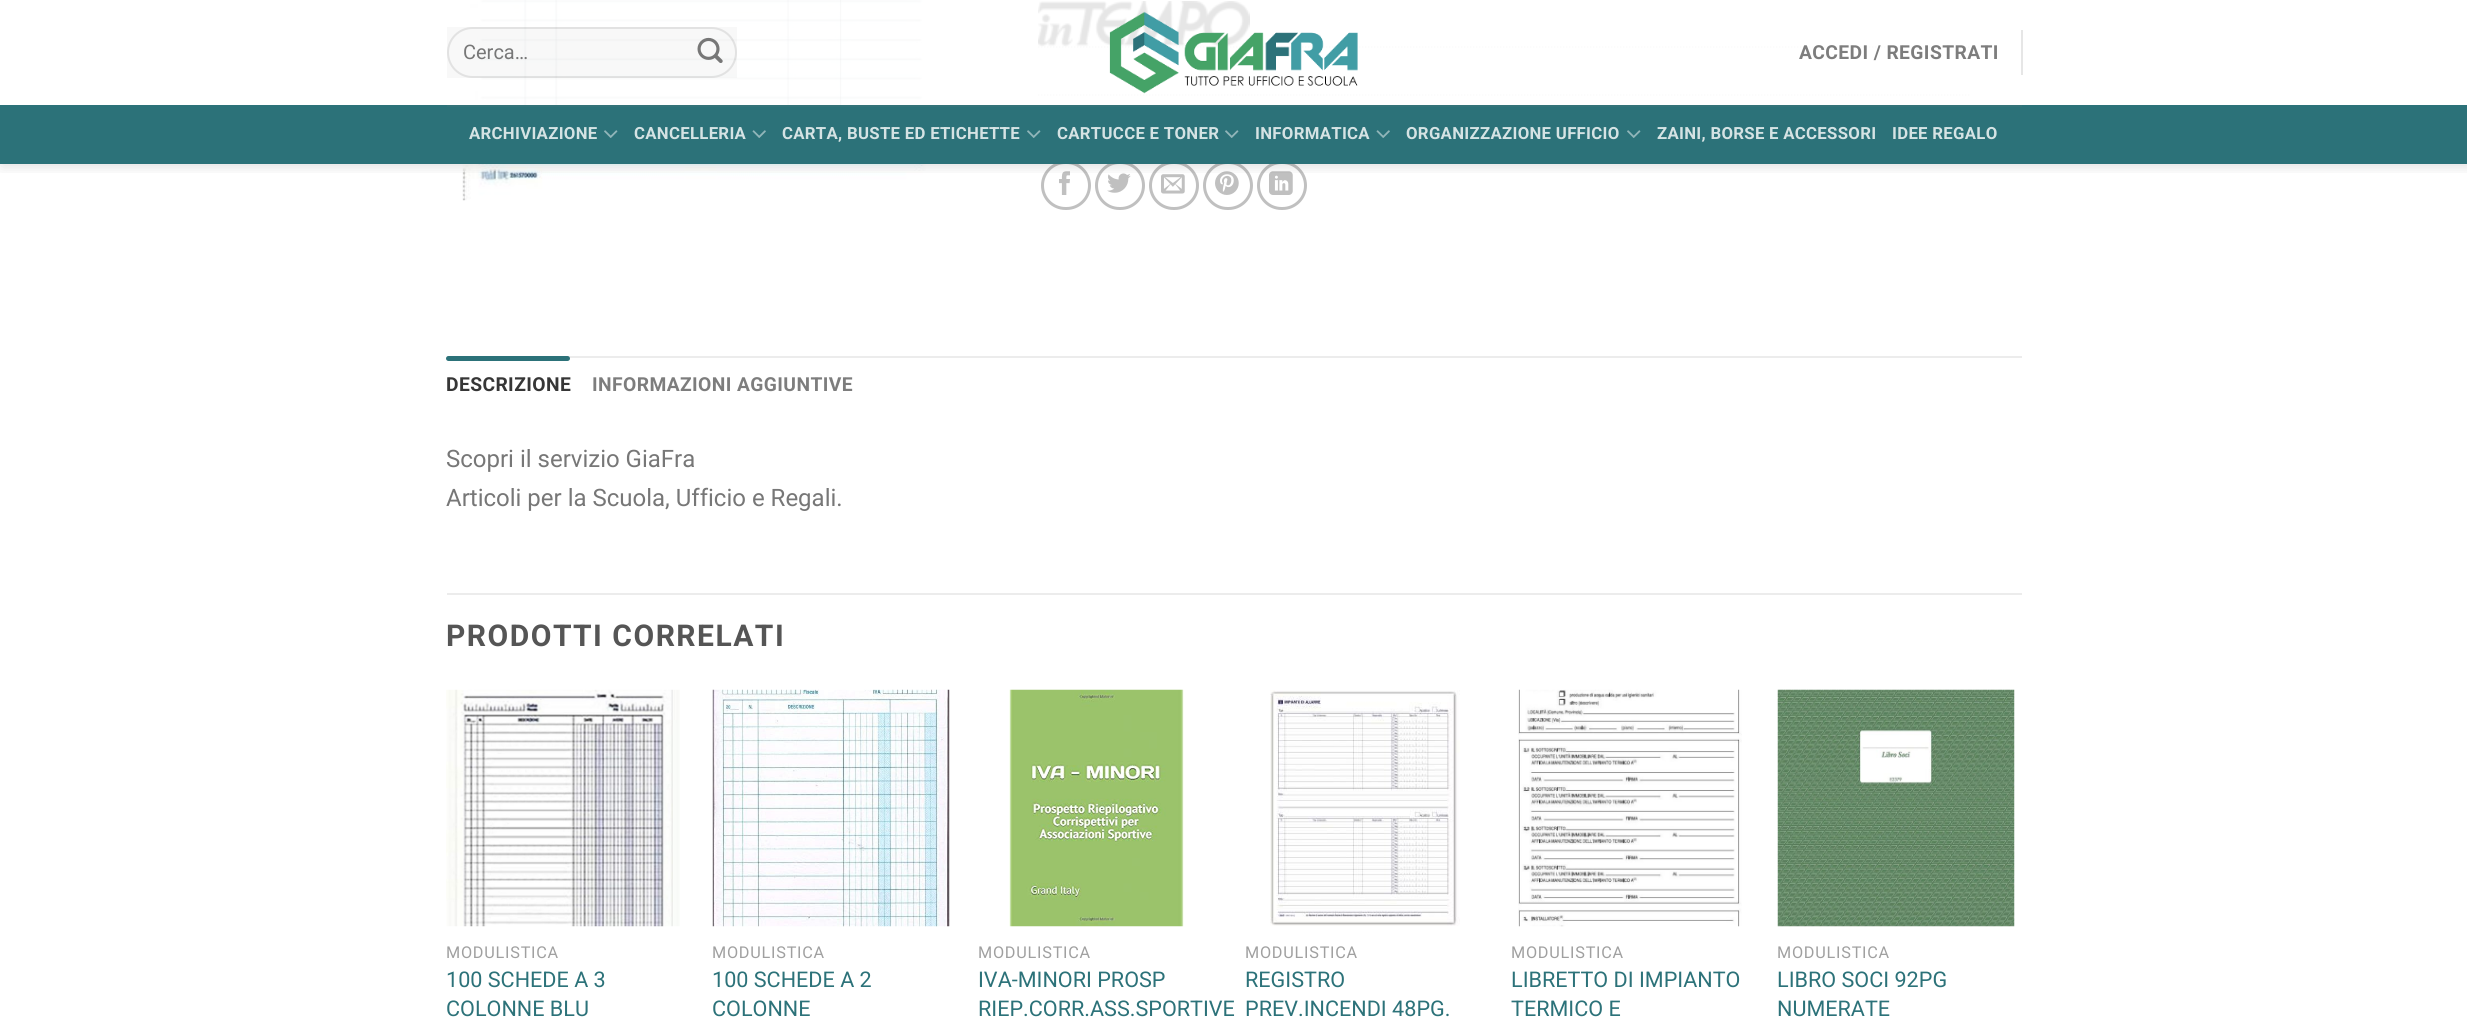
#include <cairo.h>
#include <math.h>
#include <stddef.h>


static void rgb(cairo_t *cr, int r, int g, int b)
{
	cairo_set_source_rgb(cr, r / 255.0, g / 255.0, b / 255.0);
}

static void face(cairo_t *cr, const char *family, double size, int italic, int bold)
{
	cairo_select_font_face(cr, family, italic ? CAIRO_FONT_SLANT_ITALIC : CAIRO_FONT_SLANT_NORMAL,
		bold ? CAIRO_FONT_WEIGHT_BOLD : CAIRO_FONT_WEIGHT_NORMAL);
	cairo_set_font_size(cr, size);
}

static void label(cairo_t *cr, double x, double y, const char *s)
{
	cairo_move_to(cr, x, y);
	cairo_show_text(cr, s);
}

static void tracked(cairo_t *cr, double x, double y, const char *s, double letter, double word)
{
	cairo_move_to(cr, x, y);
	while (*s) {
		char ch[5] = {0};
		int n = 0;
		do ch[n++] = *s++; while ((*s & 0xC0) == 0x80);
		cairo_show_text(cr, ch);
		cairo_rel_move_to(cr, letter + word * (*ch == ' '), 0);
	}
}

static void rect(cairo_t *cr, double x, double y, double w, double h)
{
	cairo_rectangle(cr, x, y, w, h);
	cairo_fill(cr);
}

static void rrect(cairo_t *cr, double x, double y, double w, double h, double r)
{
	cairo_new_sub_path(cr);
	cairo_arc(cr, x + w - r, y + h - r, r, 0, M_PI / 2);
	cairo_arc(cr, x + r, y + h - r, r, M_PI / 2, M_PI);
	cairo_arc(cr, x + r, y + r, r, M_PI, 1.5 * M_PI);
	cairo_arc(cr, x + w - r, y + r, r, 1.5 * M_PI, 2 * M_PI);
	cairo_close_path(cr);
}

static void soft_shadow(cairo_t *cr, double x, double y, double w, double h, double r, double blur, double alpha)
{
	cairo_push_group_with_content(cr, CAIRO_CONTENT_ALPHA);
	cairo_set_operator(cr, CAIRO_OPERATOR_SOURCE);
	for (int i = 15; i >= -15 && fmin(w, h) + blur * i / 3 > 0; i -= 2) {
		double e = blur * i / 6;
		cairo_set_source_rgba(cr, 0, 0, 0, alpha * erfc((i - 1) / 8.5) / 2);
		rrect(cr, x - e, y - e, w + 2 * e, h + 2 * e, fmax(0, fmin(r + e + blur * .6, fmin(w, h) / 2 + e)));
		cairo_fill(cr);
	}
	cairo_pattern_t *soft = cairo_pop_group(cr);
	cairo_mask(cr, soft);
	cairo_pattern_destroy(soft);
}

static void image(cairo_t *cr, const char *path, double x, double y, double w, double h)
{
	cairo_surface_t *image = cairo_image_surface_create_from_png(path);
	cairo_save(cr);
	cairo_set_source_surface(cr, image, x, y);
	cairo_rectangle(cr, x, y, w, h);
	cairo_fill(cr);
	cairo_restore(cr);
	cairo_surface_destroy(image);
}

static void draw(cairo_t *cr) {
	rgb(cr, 255, 255, 255);
	cairo_paint(cr);
	image(cr, "image4.png", 462, 0, 464, 201);
	cairo_new_path(cr);
	cairo_move_to(cr, 1038, 47);
	cairo_line_to(cr, 1969.5, 47);
	rgb(cr, 221, 221, 221);
	cairo_set_line_width(cr, 1.5);
	cairo_set_dash(cr, (double[]){1.5, 1.5}, 2, 0);
	cairo_stroke(cr);
	image(cr, "image5.png", 1038, 1, 212, 46);
	cairo_new_path(cr);
	cairo_move_to(cr, 1038, 95);
	cairo_line_to(cr, 1969.5, 95);
	cairo_stroke(cr);
	rrect(cr, 1042.5, 162.5, 47, 46, 23);
	rgb(cr, 192, 192, 192);
	cairo_set_line_width(cr, 3);
	cairo_set_dash(cr, NULL, 0, 0);
	cairo_stroke(cr);
	image(cr, "image6.png", 1059, 171, 11, 24);
	rrect(cr, 1096.5, 162.5, 47, 46, 23);
	cairo_stroke(cr);
	image(cr, "image7.png", 1107, 173, 24, 20);
	rrect(cr, 1150.5, 162.5, 47, 46, 23);
	cairo_stroke(cr);
	image(cr, "image8.png", 1161, 174, 24, 20);
	rrect(cr, 1204.5, 162.5, 47, 46, 23);
	cairo_stroke(cr);
	image(cr, "image9.png", 1215, 171, 24, 24);
	rrect(cr, 1258.5, 162.5, 47, 46, 23);
	cairo_stroke(cr);
	image(cr, "image10.png", 1269, 171, 24, 24);
	cairo_save(cr);
	cairo_rectangle(cr, 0, 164, 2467, 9);
	cairo_clip(cr);
	rgb(cr, 0, 0, 0);
	soft_shadow(cr, 2, 2, 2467, 163, 0, 7.5, 0.15);
	cairo_restore(cr);
	cairo_set_source_rgba(cr, 1, 1, 1, 0.9);
	rect(cr, 478, 0, 1492, 105);
	cairo_set_source_rgba(cr, 0, 0, 0, 0.03);
	rect(cr, 447, 27, 290, 51);
	rrect(cr, 448, 28, 288, 49, 24.5);
	cairo_set_source_rgba(cr, 0, 0, 0, 0.09);
	cairo_set_line_width(cr, 2);
	cairo_stroke(cr);
	face(cr, "Roboto", 20, 0, 0);
	rgb(cr, 119, 119, 119);
	label(cr, 463, 59, "Cerca…");
	image(cr, "image0.png", 697, 37, 26, 26);
	image(cr, "image1.png", 1109, 11, 249, 83);
	face(cr, "Roboto", 19.25, 0, 1);
	rgb(cr, 125, 125, 125);
	tracked(cr, 1799, 59, "ACCEDI / REGISTRATI", 0.4, 0);
	rgb(cr, 230, 230, 230);
	rect(cr, 2021, 30, 2, 45);
	rgb(cr, 44, 114, 121);
	rect(cr, 0, 105, 2467, 59);
	rgb(cr, 52, 115, 121);
	rect(cr, 447, 105, 1575, 2);
	face(cr, "Roboto", 16.75, 0, 1);
	rgb(cr, 213, 227, 228);
	tracked(cr, 469, 139, "ARCHIVIAZIONE", 0.3, 0);
	image(cr, "image2.png", 604, 130, 14, 8);
	tracked(cr, 634, 139, "CANCELLERIA", 0.3, 0);
	image(cr, "image3.png", 752, 130, 14, 8);
	tracked(cr, 782, 139, "CARTA, BUSTE ED ETICHETTE", 0.3, 0);
	image(cr, "image2.png", 1027, 130, 14, 8);
	tracked(cr, 1057, 139, "CARTUCCE E TONER", 0.3, 0);
	image(cr, "image2.png", 1225, 130, 14, 8);
	tracked(cr, 1255, 139, "INFORMATICA", 0.3, 0);
	image(cr, "image3.png", 1376, 130, 14, 8);
	tracked(cr, 1406, 139, "ORGANIZZAZIONE UFFICIO", 0.3, 0);
	image(cr, "image2.png", 1627, 130, 14, 8);
	tracked(cr, 1657, 139, "ZAINI, BORSE E ACCESSORI", 0.3, 0);
	tracked(cr, 1892, 139, "IDEE REGALO", 0.3, 0);
	rgb(cr, 236, 236, 236);
	rect(cr, 447, 356, 1575, 2);
	rgb(cr, 44, 114, 121);
	rrect(cr, 446, 356, 124, 5, 2.5);
	cairo_fill(cr);
	face(cr, "Roboto", 19.25, 0, 1);
	rgb(cr, 54, 54, 54);
	tracked(cr, 446, 391, "DESCRIZIONE", 0.4, 0);
	rgb(cr, 125, 125, 125);
	tracked(cr, 592, 391, "INFORMAZIONI AGGIUNTIVE", 0.4, 0);
	face(cr, "Roboto", 24, 0, 0);
	rgb(cr, 119, 119, 119);
	label(cr, 446, 467, "Scopri il servizio GiaFra");
	label(cr, 446, 506, "Articoli per la Scuola, Ufficio e Regali.");
	rgb(cr, 236, 236, 236);
	rect(cr, 447, 593, 1575, 2);
	face(cr, "Roboto", 30, 0, 1);
	rgb(cr, 85, 85, 85);
	tracked(cr, 446, 646, "PRODOTTI CORRELATI", 1.5, 0);
	image(cr, "image11.png", 446, 689, 234, 238);
	face(cr, "Roboto", 16.25, 0, 0);
	rgb(cr, 160, 160, 160);
	tracked(cr, 446, 958, "MODULISTICA", 0.75, 0);
	face(cr, "Roboto", 21.6, 0, 0);
	rgb(cr, 44, 114, 121);
	label(cr, 446, 987, "100 SCHEDE A 3");
	label(cr, 446, 1016, "COLONNE BLU");
	image(cr, "image12.png", 712, 689, 238, 238);
	face(cr, "Roboto", 16.25, 0, 0);
	rgb(cr, 160, 160, 160);
	tracked(cr, 712, 958, "MODULISTICA", 0.75, 0);
	face(cr, "Roboto", 21.6, 0, 0);
	rgb(cr, 44, 114, 121);
	label(cr, 712, 987, "100 SCHEDE A 2");
	label(cr, 712, 1016, "COLONNE");
	image(cr, "image13.png", 1009, 689, 175, 238);
	face(cr, "Roboto", 16.25, 0, 0);
	rgb(cr, 160, 160, 160);
	tracked(cr, 978, 958, "MODULISTICA", 0.75, 0);
	face(cr, "Roboto", 21.6, 0, 0);
	rgb(cr, 44, 114, 121);
	label(cr, 978, 987, "IVA-MINORI PROSP");
	label(cr, 978, 1016, "RIEP.CORR.ASS.SPORTIVE");
	image(cr, "image14.png", 1270, 690, 190, 236);
	face(cr, "Roboto", 16.25, 0, 0);
	rgb(cr, 160, 160, 160);
	tracked(cr, 1245, 958, "MODULISTICA", 0.75, 0);
	face(cr, "Roboto", 21.6, 0, 0);
	rgb(cr, 44, 114, 121);
	label(cr, 1245, 987, "REGISTRO");
	label(cr, 1245, 1016, "PREV.INCENDI 48PG.");
	image(cr, "image15.png", 1518, 689, 224, 238);
	face(cr, "Roboto", 16.25, 0, 0);
	rgb(cr, 160, 160, 160);
	tracked(cr, 1511, 958, "MODULISTICA", 0.75, 0);
	face(cr, "Roboto", 21.6, 0, 0);
	rgb(cr, 44, 114, 121);
	label(cr, 1511, 987, "LIBRETTO DI IMPIANTO");
	label(cr, 1511, 1016, "TERMICO E");
	image(cr, "image16.png", 1777, 689, 238, 238);
	face(cr, "Roboto", 16.25, 0, 0);
	rgb(cr, 160, 160, 160);
	tracked(cr, 1777, 958, "MODULISTICA", 0.75, 0);
	face(cr, "Roboto", 21.6, 0, 0);
	rgb(cr, 44, 114, 121);
	label(cr, 1777, 987, "LIBRO SOCI 92PG");
	label(cr, 1777, 1016, "NUMERATE");
}

int main(void) {
	cairo_surface_t *surface = cairo_image_surface_create(CAIRO_FORMAT_RGB24, 2467, 1018);
	cairo_t *cr = cairo_create(surface);
	cairo_font_options_t *options = cairo_font_options_create();
	cairo_font_options_set_hint_metrics(options, CAIRO_HINT_METRICS_OFF);
	cairo_font_options_set_hint_style(options, CAIRO_HINT_STYLE_NONE);
	cairo_set_font_options(cr, options);
	cairo_set_miter_limit(cr, 4);
	draw(cr);
	cairo_surface_write_to_png(surface, "render.png");
	cairo_font_options_destroy(options);
	cairo_destroy(cr);
	cairo_surface_destroy(surface);
	return 0;
}
